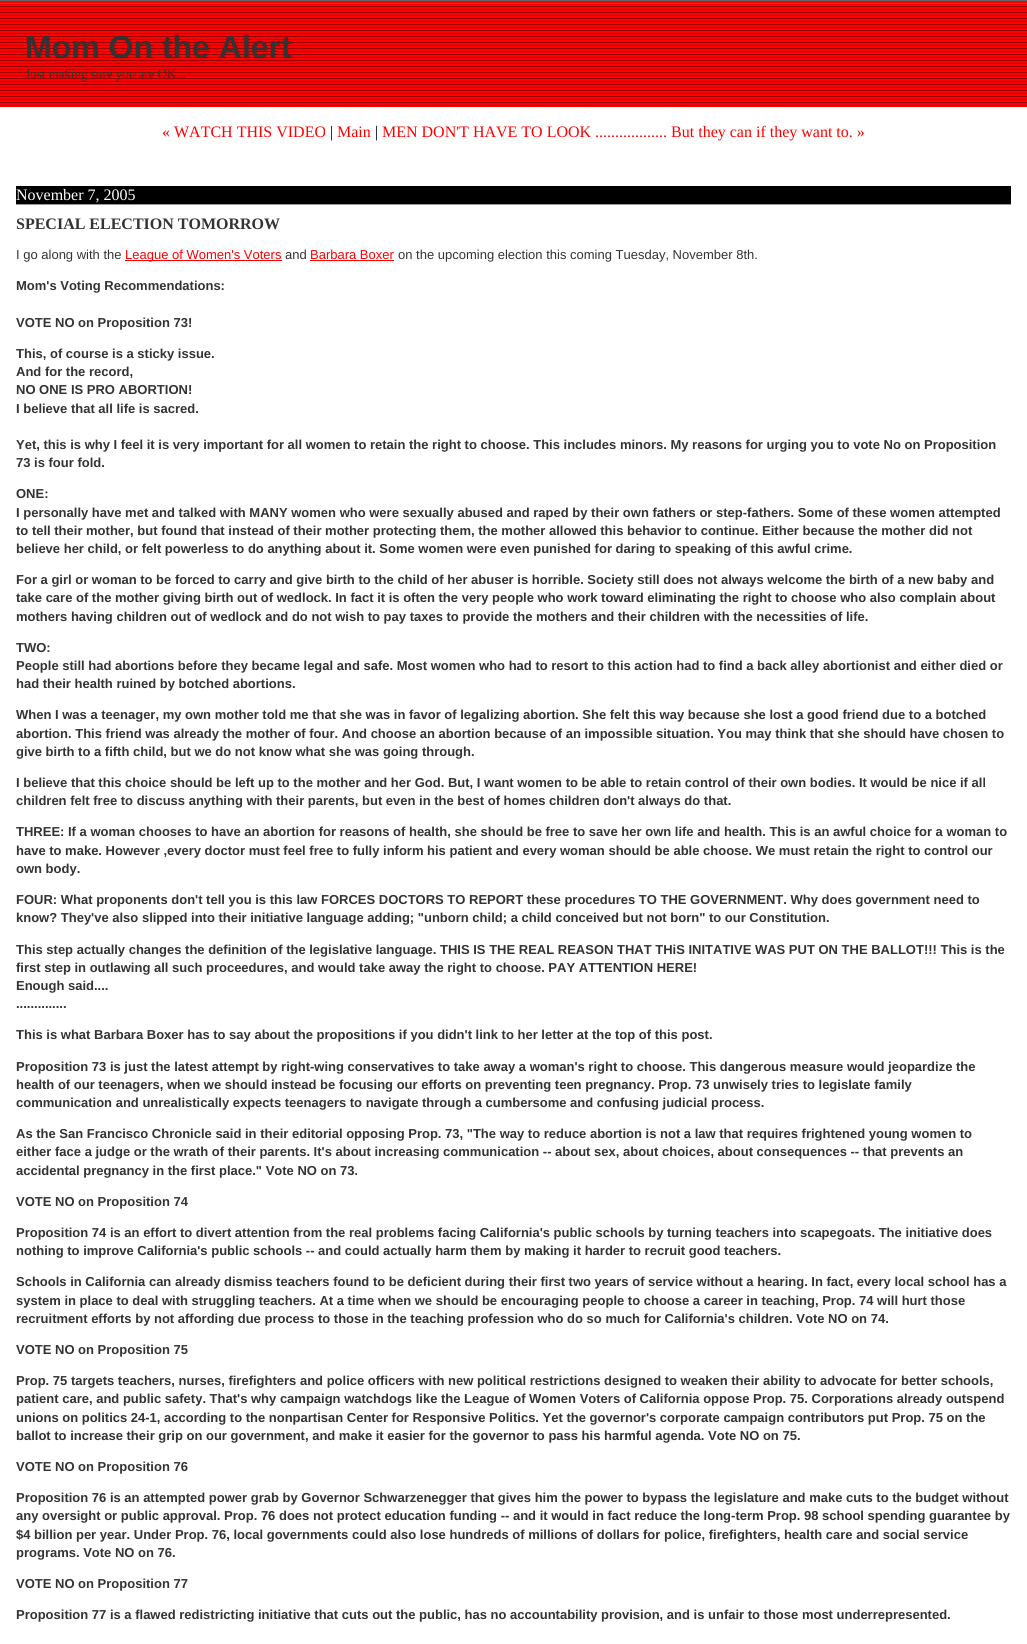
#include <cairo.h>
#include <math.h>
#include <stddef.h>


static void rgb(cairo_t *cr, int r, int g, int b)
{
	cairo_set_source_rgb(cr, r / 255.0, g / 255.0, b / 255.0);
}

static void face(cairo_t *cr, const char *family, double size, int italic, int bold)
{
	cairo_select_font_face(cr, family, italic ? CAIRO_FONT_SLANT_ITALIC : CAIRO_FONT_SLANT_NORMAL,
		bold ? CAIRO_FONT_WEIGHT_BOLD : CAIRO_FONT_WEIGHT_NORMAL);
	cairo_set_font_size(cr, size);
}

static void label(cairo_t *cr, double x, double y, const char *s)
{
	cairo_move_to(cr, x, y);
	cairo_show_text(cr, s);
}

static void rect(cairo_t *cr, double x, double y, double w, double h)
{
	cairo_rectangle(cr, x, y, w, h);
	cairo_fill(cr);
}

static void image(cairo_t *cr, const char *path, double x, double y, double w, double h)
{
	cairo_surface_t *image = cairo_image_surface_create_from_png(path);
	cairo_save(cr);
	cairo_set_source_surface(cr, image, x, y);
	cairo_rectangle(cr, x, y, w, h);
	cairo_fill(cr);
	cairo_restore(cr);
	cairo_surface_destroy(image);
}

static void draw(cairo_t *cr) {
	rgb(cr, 255, 255, 255);
	cairo_paint(cr);
	image(cr, "image0.png", 0, 1, 1027, 106);
	rgb(cr, 102, 102, 102);
	rect(cr, 0, 0, 1027, 1);
	rect(cr, 0, 3, 1027, 1);
	face(cr, "Liberation Sans", 32, 0, 1);
	rgb(cr, 51, 51, 51);
	label(cr, 25, 58, "Mom On the Alert");
	face(cr, "Liberation Serif", 13, 0, 0);
	label(cr, 25, 78, "Just making sure you are OK...");
	face(cr, "Liberation Serif", 16, 0, 0);
	rgb(cr, 255, 0, 0);
	label(cr, 162, 137, "« WATCH THIS VIDEO");
	rgb(cr, 0, 0, 0);
	label(cr, 330, 137, "|");
	rgb(cr, 255, 0, 0);
	label(cr, 337, 137, "Main");
	rgb(cr, 0, 0, 0);
	label(cr, 375, 137, "|");
	rgb(cr, 255, 0, 0);
	label(cr, 382, 137, "MEN DON'T HAVE TO LOOK .................. But they can if they want to. »");
	rgb(cr, 0, 0, 0);
	rect(cr, 16, 186, 995, 18);
	rgb(cr, 153, 153, 153);
	rect(cr, 16, 204, 995, 1);
	rgb(cr, 255, 255, 255);
	label(cr, 16, 200, "November 7, 2005");
	face(cr, "Liberation Serif", 16, 0, 1);
	rgb(cr, 51, 51, 51);
	label(cr, 16, 229, "SPECIAL ELECTION TOMORROW");
	face(cr, "Liberation Sans", 13, 0, 0);
	label(cr, 16, 259, "I go along with the");
	rgb(cr, 255, 0, 0);
	rect(cr, 125, 260, 157, 1);
	label(cr, 125, 259, "League of Women's Voters");
	rgb(cr, 51, 51, 51);
	label(cr, 285, 259, "and");
	rgb(cr, 255, 0, 0);
	label(cr, 310, 259, "Barbara Boxer");
	rect(cr, 310, 260, 84, 1);
	rgb(cr, 51, 51, 51);
	label(cr, 398, 259, "on the upcoming election this coming Tuesday, November 8th.");
	face(cr, "Liberation Sans", 13, 0, 1);
	label(cr, 16, 290, "Mom's Voting Recommendations:");
	label(cr, 16, 327, "VOTE NO on Proposition 73!");
	label(cr, 16, 358, "This, of course is a sticky issue.");
	label(cr, 16, 376, "And for the record,");
	label(cr, 16, 394, "NO ONE IS PRO ABORTION!");
	label(cr, 16, 413, "I believe that all life is sacred.");
	label(cr, 16, 449, "Yet, this is why I feel it is very important for all women to retain the right to choose. This includes minors. My reasons for urging you to vote No on Proposition");
	label(cr, 16, 467, "73 is four fold.");
	label(cr, 16, 498, "ONE:");
	label(cr, 16, 517, "I personally have met and talked with MANY women who were sexually abused and raped by their own fathers or step-fathers. Some of these women attempted");
	label(cr, 16, 535, "to tell their mother, but found that instead of their mother protecting them, the mother allowed this behavior to continue. Either because the mother did not");
	label(cr, 16, 553, "believe her child, or felt powerless to do anything about it. Some women were even punished for daring to speaking of this awful crime.");
	label(cr, 16, 584, "For a girl or woman to be forced to carry and give birth to the child of her abuser is horrible. Society still does not always welcome the birth of a new baby and");
	label(cr, 16, 602, "take care of the mother giving birth out of wedlock. In fact it is often the very people who work toward eliminating the right to choose who also complain about");
	label(cr, 16, 621, "mothers having children out of wedlock and do not wish to pay taxes to provide the mothers and their children with the necessities of life.");
	label(cr, 16, 652, "TWO:");
	label(cr, 16, 670, "People still had abortions before they became legal and safe. Most women who had to resort to this action had to find a back alley abortionist and either died or");
	label(cr, 16, 688, "had their health ruined by botched abortions.");
	label(cr, 16, 719, "When I was a teenager, my own mother told me that she was in favor of legalizing abortion. She felt this way because she lost a good friend due to a botched");
	label(cr, 16, 738, "abortion. This friend was already the mother of four. And choose an abortion because of an impossible situation. You may think that she should have chosen to");
	label(cr, 16, 756, "give birth to a fifth child, but we do not know what she was going through.");
	label(cr, 16, 787, "I believe that this choice should be left up to the mother and her God. But, I want women to be able to retain control of their own bodies. It would be nice if all");
	label(cr, 16, 805, "children felt free to discuss anything with their parents, but even in the best of homes children don't always do that.");
	label(cr, 16, 836, "THREE: If a woman chooses to have an abortion for reasons of health, she should be free to save her own life and health. This is an awful choice for a woman to");
	label(cr, 16, 855, "have to make. However ,every doctor must feel free to fully inform his patient and every woman should be able choose. We must retain the right to control our");
	label(cr, 16, 873, "own body.");
	label(cr, 16, 904, "FOUR: What proponents don't tell you is this law FORCES DOCTORS TO REPORT these procedures TO THE GOVERNMENT. Why does government need to");
	label(cr, 16, 922, "know? They've also slipped into their initiative language adding; \"unborn child; a child conceived but not born\" to our Constitution.");
	label(cr, 16, 954, "This step actually changes the definition of the legislative language. THIS IS THE REAL REASON THAT THiS INITATIVE WAS PUT ON THE BALLOT!!! This is the");
	label(cr, 16, 972, "first step in outlawing all such proceedures, and would take away the right to choose. PAY ATTENTION HERE!");
	label(cr, 16, 990, "Enough said....");
	label(cr, 16, 1008, "..............");
	label(cr, 16, 1039, "This is what Barbara Boxer has to say about the propositions if you didn't link to her letter at the top of this post.");
	label(cr, 16, 1071, "Proposition 73 is just the latest attempt by right-wing conservatives to take away a woman's right to choose. This dangerous measure would jeopardize the");
	label(cr, 16, 1089, "health of our teenagers, when we should instead be focusing our efforts on preventing teen pregnancy. Prop. 73 unwisely tries to legislate family");
	label(cr, 16, 1107, "communication and unrealistically expects teenagers to navigate through a cumbersome and confusing judicial process.");
	label(cr, 16, 1138, "As the San Francisco Chronicle said in their editorial opposing Prop. 73, \"The way to reduce abortion is not a law that requires frightened young women to");
	label(cr, 16, 1156, "either face a judge or the wrath of their parents. It's about increasing communication -- about sex, about choices, about consequences -- that prevents an");
	label(cr, 16, 1175, "accidental pregnancy in the first place.\" Vote NO on 73.");
	label(cr, 16, 1206, "VOTE NO on Proposition 74");
	label(cr, 16, 1237, "Proposition 74 is an effort to divert attention from the real problems facing California's public schools by turning teachers into scapegoats. The initiative does");
	label(cr, 16, 1255, "nothing to improve California's public schools -- and could actually harm them by making it harder to recruit good teachers.");
	label(cr, 16, 1286, "Schools in California can already dismiss teachers found to be deficient during their first two years of service without a hearing. In fact, every local school has a");
	label(cr, 16, 1305, "system in place to deal with struggling teachers. At a time when we should be encouraging people to choose a career in teaching, Prop. 74 will hurt those");
	label(cr, 16, 1323, "recruitment efforts by not affording due process to those in the teaching profession who do so much for California's children. Vote NO on 74.");
	label(cr, 16, 1354, "VOTE NO on Proposition 75");
	label(cr, 16, 1385, "Prop. 75 targets teachers, nurses, firefighters and police officers with new political restrictions designed to weaken their ability to advocate for better schools,");
	label(cr, 16, 1403, "patient care, and public safety. That's why campaign watchdogs like the League of Women Voters of California oppose Prop. 75. Corporations already outspend");
	label(cr, 16, 1422, "unions on politics 24-1, according to the nonpartisan Center for Responsive Politics. Yet the governor's corporate campaign contributors put Prop. 75 on the");
	label(cr, 16, 1440, "ballot to increase their grip on our government, and make it easier for the governor to pass his harmful agenda. Vote NO on 75.");
	label(cr, 16, 1471, "VOTE NO on Proposition 76");
	label(cr, 16, 1502, "Proposition 76 is an attempted power grab by Governor Schwarzenegger that gives him the power to bypass the legislature and make cuts to the budget without");
	label(cr, 16, 1520, "any oversight or public approval. Prop. 76 does not protect education funding -- and it would in fact reduce the long-term Prop. 98 school spending guarantee by");
	label(cr, 16, 1539, "$4 billion per year. Under Prop. 76, local governments could also lose hundreds of millions of dollars for police, firefighters, health care and social service");
	label(cr, 16, 1557, "programs. Vote NO on 76.");
	label(cr, 16, 1588, "VOTE NO on Proposition 77");
	label(cr, 16, 1619, "Proposition 77 is a flawed redistricting initiative that cuts out the public, has no accountability provision, and is unfair to those most underrepresented.");
}

int main(void) {
	cairo_surface_t *surface = cairo_image_surface_create(CAIRO_FORMAT_RGB24, 1027, 1644);
	cairo_t *cr = cairo_create(surface);
	cairo_font_options_t *options = cairo_font_options_create();
	cairo_font_options_set_hint_metrics(options, CAIRO_HINT_METRICS_OFF);
	cairo_font_options_set_hint_style(options, CAIRO_HINT_STYLE_NONE);
	cairo_set_font_options(cr, options);
	cairo_set_miter_limit(cr, 4);
	draw(cr);
	cairo_surface_write_to_png(surface, "render.png");
	cairo_font_options_destroy(options);
	cairo_destroy(cr);
	cairo_surface_destroy(surface);
	return 0;
}
